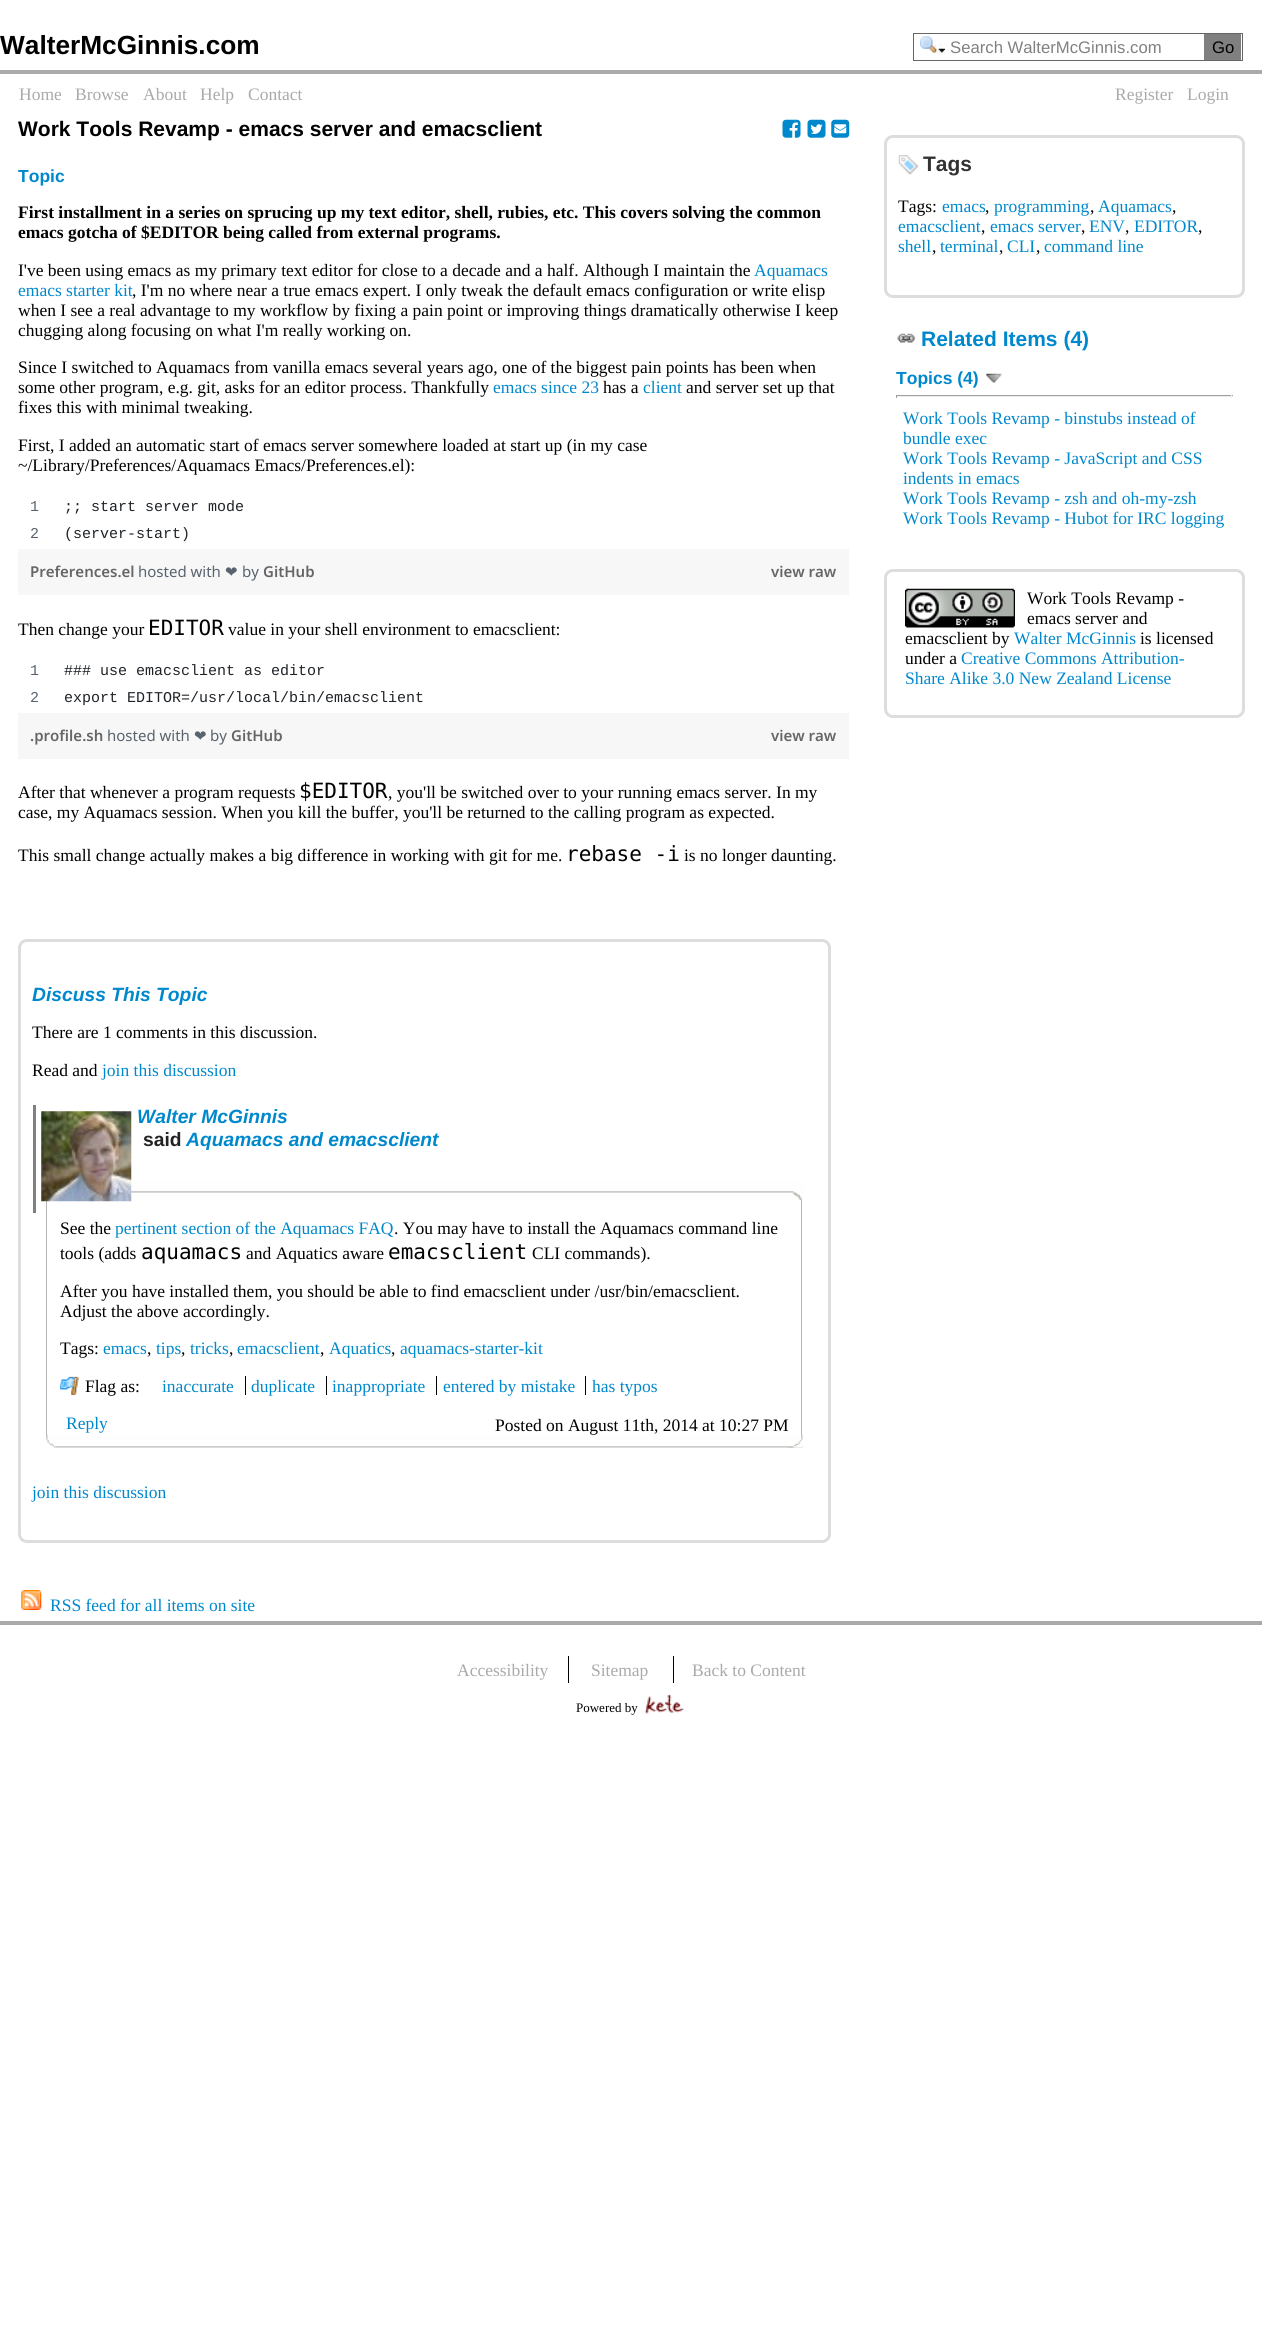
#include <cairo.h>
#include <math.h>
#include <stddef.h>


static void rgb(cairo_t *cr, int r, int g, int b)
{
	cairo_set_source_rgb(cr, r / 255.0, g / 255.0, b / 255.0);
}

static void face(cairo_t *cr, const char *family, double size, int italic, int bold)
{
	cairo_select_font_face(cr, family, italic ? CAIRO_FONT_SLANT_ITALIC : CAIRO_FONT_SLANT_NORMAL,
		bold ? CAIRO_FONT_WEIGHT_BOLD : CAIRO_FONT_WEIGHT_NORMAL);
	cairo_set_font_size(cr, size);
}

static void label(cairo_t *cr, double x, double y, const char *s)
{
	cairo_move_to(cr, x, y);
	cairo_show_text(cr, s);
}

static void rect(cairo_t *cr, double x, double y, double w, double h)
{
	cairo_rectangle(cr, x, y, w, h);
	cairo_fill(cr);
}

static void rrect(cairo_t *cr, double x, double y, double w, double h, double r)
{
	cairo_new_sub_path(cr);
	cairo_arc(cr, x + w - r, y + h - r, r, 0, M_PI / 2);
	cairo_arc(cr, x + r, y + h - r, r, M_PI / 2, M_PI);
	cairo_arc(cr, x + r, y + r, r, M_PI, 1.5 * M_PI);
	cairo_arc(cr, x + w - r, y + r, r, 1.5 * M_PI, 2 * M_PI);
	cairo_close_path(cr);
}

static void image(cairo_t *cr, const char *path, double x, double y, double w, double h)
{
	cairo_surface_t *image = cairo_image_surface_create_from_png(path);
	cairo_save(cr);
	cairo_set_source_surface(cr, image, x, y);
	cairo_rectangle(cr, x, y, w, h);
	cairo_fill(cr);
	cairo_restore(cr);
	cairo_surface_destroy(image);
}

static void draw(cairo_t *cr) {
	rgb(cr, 255, 255, 255);
	cairo_paint(cr);
	rgb(cr, 170, 170, 170);
	rect(cr, 0, 70, 1262, 4);
	face(cr, "Liberation Sans", 26.25, 0, 1);
	rgb(cr, 0, 0, 0);
	label(cr, 0, 54, "WalterMcGinnis.com");
	cairo_rectangle(cr, 913.5, 33.5, 329, 27);
	rgb(cr, 102, 102, 102);
	cairo_set_line_width(cr, 1);
	cairo_stroke(cr);
	image(cr, "image0.png", 920, 36, 25, 17);
	face(cr, "Liberation Sans", 16.7, 0, 0);
	rgb(cr, 128, 128, 128);
	label(cr, 950, 53, "Search WalterMcGinnis.com");
	rect(cr, 1204, 34, 37, 26);
	rgb(cr, 0, 0, 0);
	label(cr, 1212, 53, "Go");
	face(cr, "Liberation Serif", 17.5, 0, 0);
	rgb(cr, 170, 170, 170);
	label(cr, 19, 100, "Home");
	label(cr, 75, 100, "Browse");
	label(cr, 143, 100, "About");
	label(cr, 200, 100, "Help");
	label(cr, 248, 100, "Contact");
	label(cr, 1115, 100, "Register");
	label(cr, 1187, 100, "Login");
	face(cr, "Liberation Sans", 21, 0, 1);
	rgb(cr, 0, 0, 0);
	label(cr, 18, 136, "Work Tools Revamp - emacs server and emacsclient");
	image(cr, "image1.png", 782, 119, 19, 19);
	image(cr, "image2.png", 807, 119, 19, 19);
	image(cr, "image3.png", 831, 119, 19, 19);
	face(cr, "Liberation Sans", 17.5, 0, 1);
	rgb(cr, 0, 136, 204);
	label(cr, 18, 182, "Topic");
	face(cr, "Liberation Serif", 17.5, 0, 1);
	rgb(cr, 0, 0, 0);
	label(cr, 18, 218, "First installment in a series on sprucing up my text editor, shell, rubies, etc. This covers solving the common");
	label(cr, 18, 238, "emacs gotcha of $EDITOR being called from external programs.");
	face(cr, "Liberation Serif", 17.5, 0, 0);
	label(cr, 18, 276, "I've been using emacs as my primary text editor for close to a decade and a half. Although I maintain the");
	rgb(cr, 0, 136, 204);
	label(cr, 754, 276, "Aquamacs");
	label(cr, 18, 296, "emacs starter kit");
	rgb(cr, 0, 0, 0);
	label(cr, 132, 296, ", I'm no where near a true emacs expert. I only tweak the default emacs configuration or write elisp");
	label(cr, 18, 316, "when I see a real advantage to my workflow by fixing a pain point or improving things dramatically otherwise I keep");
	label(cr, 18, 336, "chugging along focusing on what I'm really working on.");
	label(cr, 18, 373, "Since I switched to Aquamacs from vanilla emacs several years ago, one of the biggest pain points has been when");
	label(cr, 18, 393, "some other program, e.g. git, asks for an editor process. Thankfully");
	rgb(cr, 0, 136, 204);
	label(cr, 493, 393, "emacs since 23");
	rgb(cr, 0, 0, 0);
	label(cr, 603, 393, "has a");
	rgb(cr, 0, 136, 204);
	label(cr, 643, 393, "client");
	rgb(cr, 0, 0, 0);
	label(cr, 686, 393, "and server set up that");
	label(cr, 18, 413, "fixes this with minimal tweaking.");
	label(cr, 18, 451, "First, I added an automatic start of emacs server somewhere loaded at start up (in my case");
	label(cr, 18, 471, "~/Library/Preferences/Aquamacs Emacs/Preferences.el):");
	face(cr, "Liberation Mono", 15, 0, 0);
	rgb(cr, 89, 99, 110);
	label(cr, 30, 511, "1");
	rgb(cr, 31, 35, 40);
	label(cr, 64, 511, ";; start server mode");
	rgb(cr, 89, 99, 110);
	label(cr, 30, 538, "2");
	rgb(cr, 31, 35, 40);
	label(cr, 64, 538, "(server-start)");
	rgb(cr, 247, 247, 247);
	rect(cr, 18, 549, 831, 46);
	face(cr, "Noto Sans SemiBold", 15, 0, 0);
	rgb(cr, 102, 102, 102);
	label(cr, 30, 577, "Preferences.el");
	face(cr, "Noto Sans", 15, 0, 0);
	rgb(cr, 89, 99, 110);
	label(cr, 138, 577, "hosted with");
	face(cr, "DejaVu Sans", 15, 0, 0);
	label(cr, 225, 577, "❤");
	face(cr, "Noto Sans", 15, 0, 0);
	label(cr, 242, 577, "by");
	face(cr, "Noto Sans SemiBold", 15, 0, 0);
	rgb(cr, 102, 102, 102);
	label(cr, 263, 577, "GitHub");
	label(cr, 771, 577, "view raw");
	face(cr, "Liberation Serif", 17.5, 0, 0);
	rgb(cr, 0, 0, 0);
	label(cr, 18, 635, "Then change your");
	face(cr, "DejaVu Sans Mono", 21, 0, 0);
	label(cr, 148, 635, "EDITOR");
	face(cr, "Liberation Serif", 17.5, 0, 0);
	label(cr, 228, 635, "value in your shell environment to emacsclient:");
	face(cr, "Liberation Mono", 15, 0, 0);
	rgb(cr, 89, 99, 110);
	label(cr, 30, 675, "1");
	rgb(cr, 31, 35, 40);
	label(cr, 64, 675, "### use emacsclient as editor");
	rgb(cr, 89, 99, 110);
	label(cr, 30, 702, "2");
	rgb(cr, 31, 35, 40);
	label(cr, 64, 702, "export EDITOR=/usr/local/bin/emacsclient");
	rgb(cr, 247, 247, 247);
	rect(cr, 18, 713, 831, 46);
	face(cr, "Noto Sans SemiBold", 15, 0, 0);
	rgb(cr, 102, 102, 102);
	label(cr, 30, 741, ".profile.sh");
	face(cr, "Noto Sans", 15, 0, 0);
	rgb(cr, 89, 99, 110);
	label(cr, 107, 741, "hosted with");
	face(cr, "DejaVu Sans", 15, 0, 0);
	label(cr, 194, 741, "❤");
	face(cr, "Noto Sans", 15, 0, 0);
	label(cr, 210, 741, "by");
	face(cr, "Noto Sans SemiBold", 15, 0, 0);
	rgb(cr, 102, 102, 102);
	label(cr, 231, 741, "GitHub");
	label(cr, 771, 741, "view raw");
	face(cr, "Liberation Serif", 17.5, 0, 0);
	rgb(cr, 0, 0, 0);
	label(cr, 18, 798, "After that whenever a program requests");
	face(cr, "DejaVu Sans Mono", 21, 0, 0);
	label(cr, 299, 798, "$EDITOR");
	face(cr, "Liberation Serif", 17.5, 0, 0);
	label(cr, 388, 798, ", you'll be switched over to your running emacs server. In my");
	label(cr, 18, 818, "case, my Aquamacs session. When you kill the buffer, you'll be returned to the calling program as expected.");
	label(cr, 18, 861, "This small change actually makes a big difference in working with git for me.");
	face(cr, "DejaVu Sans Mono", 21, 0, 0);
	label(cr, 566, 861, "rebase -i");
	face(cr, "Liberation Serif", 17.5, 0, 0);
	label(cr, 684, 861, "is no longer daunting.");
	rrect(cr, 19.5, 940.5, 810, 601, 7.5);
	rgb(cr, 221, 221, 221);
	cairo_set_line_width(cr, 3);
	cairo_stroke(cr);
	face(cr, "Liberation Sans", 19.25, 1, 1);
	rgb(cr, 0, 136, 204);
	label(cr, 32, 1001, "Discuss This Topic");
	face(cr, "Liberation Serif", 17.5, 0, 0);
	rgb(cr, 0, 0, 0);
	label(cr, 32, 1038, "There are 1 comments in this discussion.");
	label(cr, 32, 1076, "Read and");
	rgb(cr, 0, 136, 204);
	label(cr, 102, 1076, "join this discussion");
	rgb(cr, 128, 128, 128);
	rect(cr, 33, 1105, 3, 108);
	image(cr, "image5.png", 131, 1181, 672, 19);
	rgb(cr, 182, 181, 178);
	rect(cr, 46, 1200, 1, 235);
	image(cr, "image4.png", 41, 1111, 91, 91);
	face(cr, "Liberation Sans", 19.25, 1, 1);
	rgb(cr, 0, 136, 204);
	label(cr, 137, 1123, "Walter McGinnis");
	face(cr, "Liberation Sans", 19.25, 0, 1);
	rgb(cr, 34, 34, 34);
	label(cr, 143, 1146, "said");
	face(cr, "Liberation Sans", 19.25, 1, 1);
	rgb(cr, 0, 136, 204);
	label(cr, 186, 1146, "Aquamacs and emacsclient");
	image(cr, "image6.png", 792, 1191, 11, 9);
	rgb(cr, 182, 181, 178);
	rect(cr, 801, 1200, 1, 235);
	face(cr, "Liberation Serif", 17.5, 0, 0);
	rgb(cr, 0, 0, 0);
	label(cr, 60, 1234, "See the");
	rgb(cr, 0, 136, 204);
	label(cr, 115, 1234, "pertinent section of the Aquamacs FAQ");
	rgb(cr, 0, 0, 0);
	label(cr, 394, 1234, ". You may have to install the Aquamacs command line");
	label(cr, 60, 1259, "tools (adds");
	face(cr, "DejaVu Sans Mono", 21, 0, 0);
	label(cr, 141, 1259, "aquamacs");
	face(cr, "Liberation Serif", 17.5, 0, 0);
	label(cr, 246, 1259, "and Aquatics aware");
	face(cr, "DejaVu Sans Mono", 21, 0, 0);
	label(cr, 388, 1259, "emacsclient");
	face(cr, "Liberation Serif", 17.5, 0, 0);
	label(cr, 532, 1259, "CLI commands).");
	label(cr, 60, 1297, "After you have installed them, you should be able to find emacsclient under /usr/bin/emacsclient.");
	label(cr, 60, 1317, "Adjust the above accordingly.");
	label(cr, 60, 1354, "Tags:");
	rgb(cr, 0, 136, 204);
	label(cr, 103, 1354, "emacs");
	rgb(cr, 0, 0, 0);
	label(cr, 147, 1354, ",");
	rgb(cr, 0, 136, 204);
	label(cr, 156, 1354, "tips");
	rgb(cr, 0, 0, 0);
	label(cr, 181, 1354, ",");
	rgb(cr, 0, 136, 204);
	label(cr, 190, 1354, "tricks");
	rgb(cr, 0, 0, 0);
	label(cr, 229, 1354, ",");
	rgb(cr, 0, 136, 204);
	label(cr, 237, 1354, "emacsclient");
	rgb(cr, 0, 0, 0);
	label(cr, 320, 1354, ",");
	rgb(cr, 0, 136, 204);
	label(cr, 329, 1354, "Aquatics");
	rgb(cr, 0, 0, 0);
	label(cr, 391, 1354, ",");
	rgb(cr, 0, 136, 204);
	label(cr, 400, 1354, "aquamacs-starter-kit");
	image(cr, "image7.png", 60, 1376, 19, 19);
	rgb(cr, 0, 0, 0);
	label(cr, 85, 1392, "Flag as:");
	rgb(cr, 0, 136, 204);
	label(cr, 162, 1392, "inaccurate");
	label(cr, 251, 1392, "duplicate");
	rgb(cr, 0, 0, 0);
	rect(cr, 245, 1376, 1, 19);
	rgb(cr, 0, 136, 204);
	label(cr, 332, 1392, "inappropriate");
	rgb(cr, 0, 0, 0);
	rect(cr, 326, 1376, 1, 19);
	rgb(cr, 0, 136, 204);
	label(cr, 443, 1392, "entered by mistake");
	rgb(cr, 0, 0, 0);
	rect(cr, 436, 1376, 1, 19);
	rgb(cr, 0, 136, 204);
	label(cr, 592, 1392, "has typos");
	rgb(cr, 0, 0, 0);
	rect(cr, 585, 1376, 1, 19);
	rgb(cr, 0, 136, 204);
	label(cr, 66, 1429, "Reply");
	rgb(cr, 0, 0, 0);
	label(cr, 495, 1431, "Posted on August 11th, 2014 at 10:27 PM");
	image(cr, "image8.png", 46, 1435, 757, 13);
	image(cr, "image9.png", 788, 1435, 15, 13);
	rgb(cr, 0, 136, 204);
	label(cr, 32, 1498, "join this discussion");
	rrect(cr, 885.5, 136.5, 358, 160, 7.5);
	rgb(cr, 221, 221, 221);
	cairo_stroke(cr);
	image(cr, "image10.png", 898, 155, 21, 20);
	face(cr, "Liberation Sans", 21, 0, 1);
	rgb(cr, 51, 51, 51);
	label(cr, 923, 171, "Tags");
	face(cr, "Liberation Serif", 17.5, 0, 0);
	rgb(cr, 0, 0, 0);
	label(cr, 898, 212, "Tags:");
	rgb(cr, 0, 136, 204);
	label(cr, 942, 212, "emacs");
	rgb(cr, 0, 0, 0);
	label(cr, 985, 212, ",");
	rgb(cr, 0, 136, 204);
	label(cr, 994, 212, "programming");
	rgb(cr, 0, 0, 0);
	label(cr, 1090, 212, ",");
	rgb(cr, 0, 136, 204);
	label(cr, 1098, 212, "Aquamacs");
	rgb(cr, 0, 0, 0);
	label(cr, 1172, 212, ",");
	rgb(cr, 0, 136, 204);
	label(cr, 898, 232, "emacsclient");
	rgb(cr, 0, 0, 0);
	label(cr, 981, 232, ",");
	rgb(cr, 0, 136, 204);
	label(cr, 990, 232, "emacs server");
	rgb(cr, 0, 0, 0);
	label(cr, 1081, 232, ",");
	rgb(cr, 0, 136, 204);
	label(cr, 1089, 232, "ENV");
	rgb(cr, 0, 0, 0);
	label(cr, 1125, 232, ",");
	rgb(cr, 0, 136, 204);
	label(cr, 1134, 232, "EDITOR");
	rgb(cr, 0, 0, 0);
	label(cr, 1198, 232, ",");
	rgb(cr, 0, 136, 204);
	label(cr, 898, 252, "shell");
	rgb(cr, 0, 0, 0);
	label(cr, 932, 252, ",");
	rgb(cr, 0, 136, 204);
	label(cr, 940, 252, "terminal");
	rgb(cr, 0, 0, 0);
	label(cr, 999, 252, ",");
	rgb(cr, 0, 136, 204);
	label(cr, 1007, 252, "CLI");
	rgb(cr, 0, 0, 0);
	label(cr, 1036, 252, ",");
	rgb(cr, 0, 136, 204);
	label(cr, 1044, 252, "command line");
	image(cr, "image11.png", 897, 333, 19, 10);
	face(cr, "Liberation Sans", 21, 0, 1);
	label(cr, 921, 346, "Related Items (4)");
	face(cr, "Liberation Sans", 17.5, 0, 1);
	label(cr, 896, 384, "Topics (4)");
	image(cr, "image12.png", 986, 373, 16, 10);
	rgb(cr, 159, 159, 159);
	rect(cr, 896, 395, 337, 1);
	rgb(cr, 238, 238, 238);
	rect(cr, 1231, 395, 1, 3);
	rect(cr, 896, 396, 337, 1);
	rgb(cr, 159, 159, 159);
	rect(cr, 896, 395, 1, 3);
	face(cr, "Liberation Serif", 17.5, 0, 0);
	rgb(cr, 0, 136, 204);
	label(cr, 903, 424, "Work Tools Revamp - binstubs instead of");
	label(cr, 903, 444, "bundle exec");
	label(cr, 903, 464, "Work Tools Revamp - JavaScript and CSS");
	label(cr, 903, 484, "indents in emacs");
	label(cr, 903, 504, "Work Tools Revamp - zsh and oh-my-zsh");
	label(cr, 903, 524, "Work Tools Revamp - Hubot for IRC logging");
	rrect(cr, 885.5, 570.5, 358, 146, 7.5);
	rgb(cr, 221, 221, 221);
	cairo_stroke(cr);
	image(cr, "image13.png", 905, 588, 110, 40);
	rgb(cr, 0, 0, 0);
	label(cr, 1027, 604, "Work Tools Revamp -");
	label(cr, 1027, 624, "emacs server and");
	label(cr, 905, 644, "emacsclient by");
	rgb(cr, 0, 136, 204);
	label(cr, 1014, 644, "Walter McGinnis");
	rgb(cr, 0, 0, 0);
	label(cr, 1140, 644, "is licensed");
	label(cr, 905, 664, "under a");
	rgb(cr, 0, 136, 204);
	label(cr, 961, 664, "Creative Commons Attribution-");
	label(cr, 905, 684, "Share Alike 3.0 New Zealand License");
	image(cr, "image14.png", 21, 1590, 21, 20);
	label(cr, 50, 1611, "RSS feed for all items on site");
	rgb(cr, 170, 170, 170);
	rect(cr, 0, 1621, 1262, 4);
	label(cr, 457, 1676, "Accessibility");
	rgb(cr, 0, 0, 0);
	rect(cr, 568, 1656, 1, 27);
	rgb(cr, 170, 170, 170);
	label(cr, 591, 1676, "Sitemap");
	rgb(cr, 0, 0, 0);
	rect(cr, 673, 1656, 1, 27);
	rgb(cr, 170, 170, 170);
	label(cr, 692, 1676, "Back to Content");
	face(cr, "Liberation Serif", 13, 0, 0);
	rgb(cr, 0, 0, 0);
	label(cr, 576, 1712, "Powered by");
	image(cr, "image15.png", 645, 1694, 39, 20);
}

int main(void) {
	cairo_surface_t *surface = cairo_image_surface_create(CAIRO_FORMAT_RGB24, 1262, 2343);
	cairo_t *cr = cairo_create(surface);
	cairo_font_options_t *options = cairo_font_options_create();
	cairo_font_options_set_hint_metrics(options, CAIRO_HINT_METRICS_OFF);
	cairo_font_options_set_hint_style(options, CAIRO_HINT_STYLE_NONE);
	cairo_set_font_options(cr, options);
	cairo_set_miter_limit(cr, 4);
	draw(cr);
	cairo_surface_write_to_png(surface, "render.png");
	cairo_font_options_destroy(options);
	cairo_destroy(cr);
	cairo_surface_destroy(surface);
	return 0;
}
